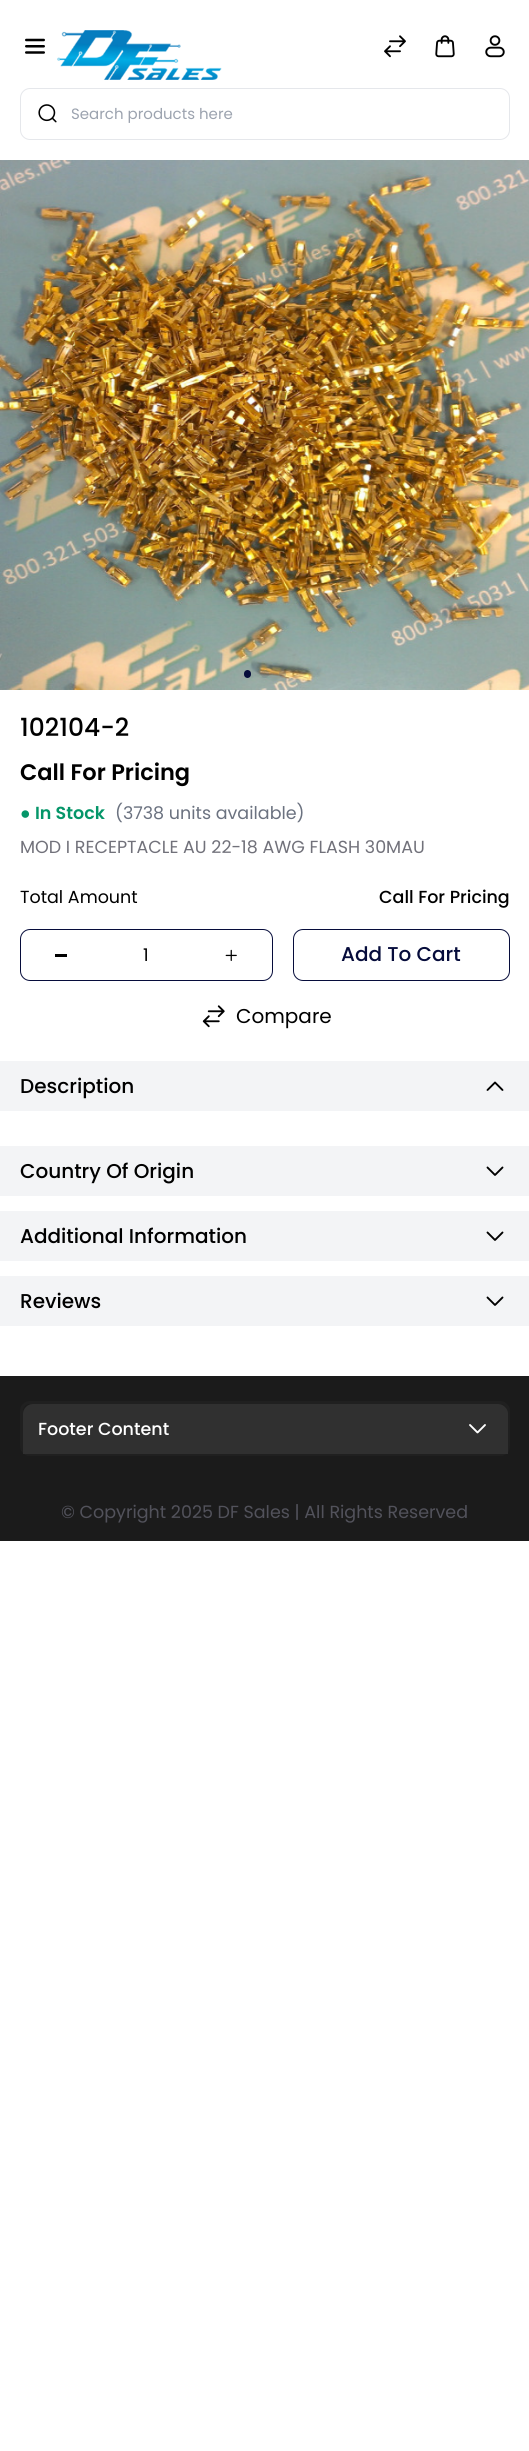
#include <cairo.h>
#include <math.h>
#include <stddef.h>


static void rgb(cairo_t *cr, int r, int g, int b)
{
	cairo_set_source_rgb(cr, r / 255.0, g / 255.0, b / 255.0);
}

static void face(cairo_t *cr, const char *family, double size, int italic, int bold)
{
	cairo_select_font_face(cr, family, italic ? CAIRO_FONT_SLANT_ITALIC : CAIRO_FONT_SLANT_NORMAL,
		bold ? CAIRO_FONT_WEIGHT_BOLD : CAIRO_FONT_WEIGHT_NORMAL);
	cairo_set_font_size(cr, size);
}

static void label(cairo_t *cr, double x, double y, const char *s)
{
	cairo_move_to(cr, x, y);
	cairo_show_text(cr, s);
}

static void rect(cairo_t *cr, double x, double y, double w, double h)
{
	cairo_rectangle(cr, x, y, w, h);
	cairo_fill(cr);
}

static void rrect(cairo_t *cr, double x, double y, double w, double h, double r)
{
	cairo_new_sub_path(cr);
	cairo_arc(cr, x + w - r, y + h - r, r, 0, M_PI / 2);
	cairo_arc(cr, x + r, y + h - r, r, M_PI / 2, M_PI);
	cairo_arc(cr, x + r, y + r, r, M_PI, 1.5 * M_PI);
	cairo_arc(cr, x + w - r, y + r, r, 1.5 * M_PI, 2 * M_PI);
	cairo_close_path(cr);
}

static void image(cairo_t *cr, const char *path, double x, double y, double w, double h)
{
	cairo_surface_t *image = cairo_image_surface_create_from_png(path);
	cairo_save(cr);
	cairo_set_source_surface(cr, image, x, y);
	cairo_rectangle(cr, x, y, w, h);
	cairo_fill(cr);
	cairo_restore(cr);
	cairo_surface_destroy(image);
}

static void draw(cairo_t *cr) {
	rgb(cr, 255, 255, 255);
	cairo_paint(cr);
	image(cr, "image0.png", 25, 38, 20, 16);
	image(cr, "image1.png", 57, 30, 165, 50);
	image(cr, "image2.png", 384, 35, 22, 23);
	image(cr, "image3.png", 435, 35, 20, 23);
	image(cr, "image4.png", 485, 35, 20, 23);
	rrect(cr, 20.5, 88.5, 489, 51, 9.5);
	rgb(cr, 229, 231, 235);
	cairo_set_line_width(cr, 1);
	cairo_stroke(cr);
	image(cr, "image5.png", 38, 104, 19, 19);
	face(cr, "Poppins", 15, 0, 0);
	rgb(cr, 156, 163, 175);
	label(cr, 71, 119, "Search products here");
	image(cr, "image6.png", 0, 160, 529, 530);
	rgb(cr, 6, 12, 59);
	rrect(cr, 244, 670, 7, 8, 3.5);
	cairo_fill(cr);
	cairo_set_source_rgba(cr, 0.42, 0.447, 0.502, 0.3);
	cairo_arc(cr, 265, 674, 4, 0, 2 * M_PI);
	cairo_fill(cr);
	rrect(cr, 279, 670, 7, 8, 3.5);
	cairo_fill(cr);
	face(cr, "Poppins Medium", 25, 0, 0);
	rgb(cr, 0, 0, 0);
	label(cr, 20, 736, "102104-2");
	face(cr, "Poppins SemiBold", 22.5, 0, 0);
	label(cr, 20, 780, "Call For Pricing");
	face(cr, "Liberation Serif", 17.5, 0, 1);
	rgb(cr, 5, 150, 105);
	label(cr, 20, 819, "●");
	face(cr, "Poppins SemiBold", 17.5, 0, 0);
	label(cr, 35, 819, "In Stock");
	face(cr, "Poppins", 17.5, 0, 0);
	rgb(cr, 107, 114, 128);
	label(cr, 115, 819, "(3738 units available)");
	rgb(cr, 113, 113, 122);
	label(cr, 20, 853, "MOD I RECEPTACLE AU 22-18 AWG FLASH 30MAU");
	rgb(cr, 0, 0, 0);
	label(cr, 20, 903, "Total Amount");
	face(cr, "Poppins Medium", 17.5, 0, 0);
	label(cr, 379, 903, "Call For Pricing");
	rrect(cr, 20.5, 929.5, 252, 51, 9.5);
	rgb(cr, 6, 12, 59);
	cairo_stroke(cr);
	rgb(cr, 0, 0, 0);
	rect(cr, 55, 954, 12, 3);
	face(cr, "Poppins", 17.5, 0, 0);
	label(cr, 143, 961, "1");
	image(cr, "image7.png", 225, 949, 12, 12);
	rrect(cr, 293.5, 929.5, 216, 51, 9.5);
	rgb(cr, 6, 12, 59);
	cairo_stroke(cr);
	face(cr, "Poppins Medium", 20, 0, 0);
	label(cr, 341, 961, "Add To Cart");
	image(cr, "image8.png", 202, 1005, 23, 23);
	face(cr, "Poppins", 20, 0, 0);
	rgb(cr, 0, 0, 0);
	label(cr, 236, 1023, "Compare");
	rgb(cr, 243, 244, 246);
	rect(cr, 0, 1061, 529, 50);
	face(cr, "Poppins Medium", 20, 0, 0);
	rgb(cr, 0, 0, 0);
	label(cr, 20, 1093, "Description");
	image(cr, "image9.png", 486, 1081, 18, 10);
	rgb(cr, 243, 244, 246);
	rect(cr, 0, 1146, 529, 50);
	rgb(cr, 0, 0, 0);
	label(cr, 20, 1178, "Country Of Origin");
	image(cr, "image10.png", 486, 1166, 18, 10);
	rgb(cr, 243, 244, 246);
	rect(cr, 0, 1211, 529, 50);
	rgb(cr, 0, 0, 0);
	label(cr, 20, 1243, "Additional Information");
	image(cr, "image10.png", 486, 1231, 18, 10);
	rgb(cr, 243, 244, 246);
	rect(cr, 0, 1276, 529, 50);
	rgb(cr, 0, 0, 0);
	label(cr, 20, 1308, "Reviews");
	image(cr, "image10.png", 486, 1296, 18, 10);
	rgb(cr, 27, 27, 27);
	rect(cr, 0, 1376, 529, 165);
	rrect(cr, 21.5, 1402.5, 487, 52, 8.5);
	rgb(cr, 32, 32, 32);
	cairo_set_line_width(cr, 3);
	cairo_stroke(cr);
	rgb(cr, 48, 48, 48);
	cairo_new_path(cr);
	cairo_move_to(cr, 33, 1404);
	cairo_line_to(cr, 498, 1404);
	cairo_curve_to(cr, 503.5, 1404, 508, 1408.5, 508, 1414);
	cairo_line_to(cr, 508, 1454);
	cairo_line_to(cr, 23, 1454);
	cairo_line_to(cr, 23, 1414);
	cairo_curve_to(cr, 23, 1408.5, 27.5, 1404, 33, 1404);
	cairo_close_path(cr);
	cairo_fill(cr);
	face(cr, "Poppins Medium", 17.5, 0, 0);
	rgb(cr, 255, 255, 255);
	label(cr, 38, 1435, "Footer Content");
	image(cr, "image11.png", 469, 1424, 17, 10);
	face(cr, "Poppins", 17.5, 0, 0);
	rgb(cr, 82, 82, 91);
	label(cr, 61, 1518, "© Copyright 2025 DF Sales | All Rights Reserved");
}

int main(void) {
	cairo_surface_t *surface = cairo_image_surface_create(CAIRO_FORMAT_RGB24, 529, 2451);
	cairo_t *cr = cairo_create(surface);
	cairo_font_options_t *options = cairo_font_options_create();
	cairo_font_options_set_hint_metrics(options, CAIRO_HINT_METRICS_OFF);
	cairo_font_options_set_hint_style(options, CAIRO_HINT_STYLE_NONE);
	cairo_set_font_options(cr, options);
	cairo_set_miter_limit(cr, 4);
	draw(cr);
	cairo_surface_write_to_png(surface, "render.png");
	cairo_font_options_destroy(options);
	cairo_destroy(cr);
	cairo_surface_destroy(surface);
	return 0;
}
